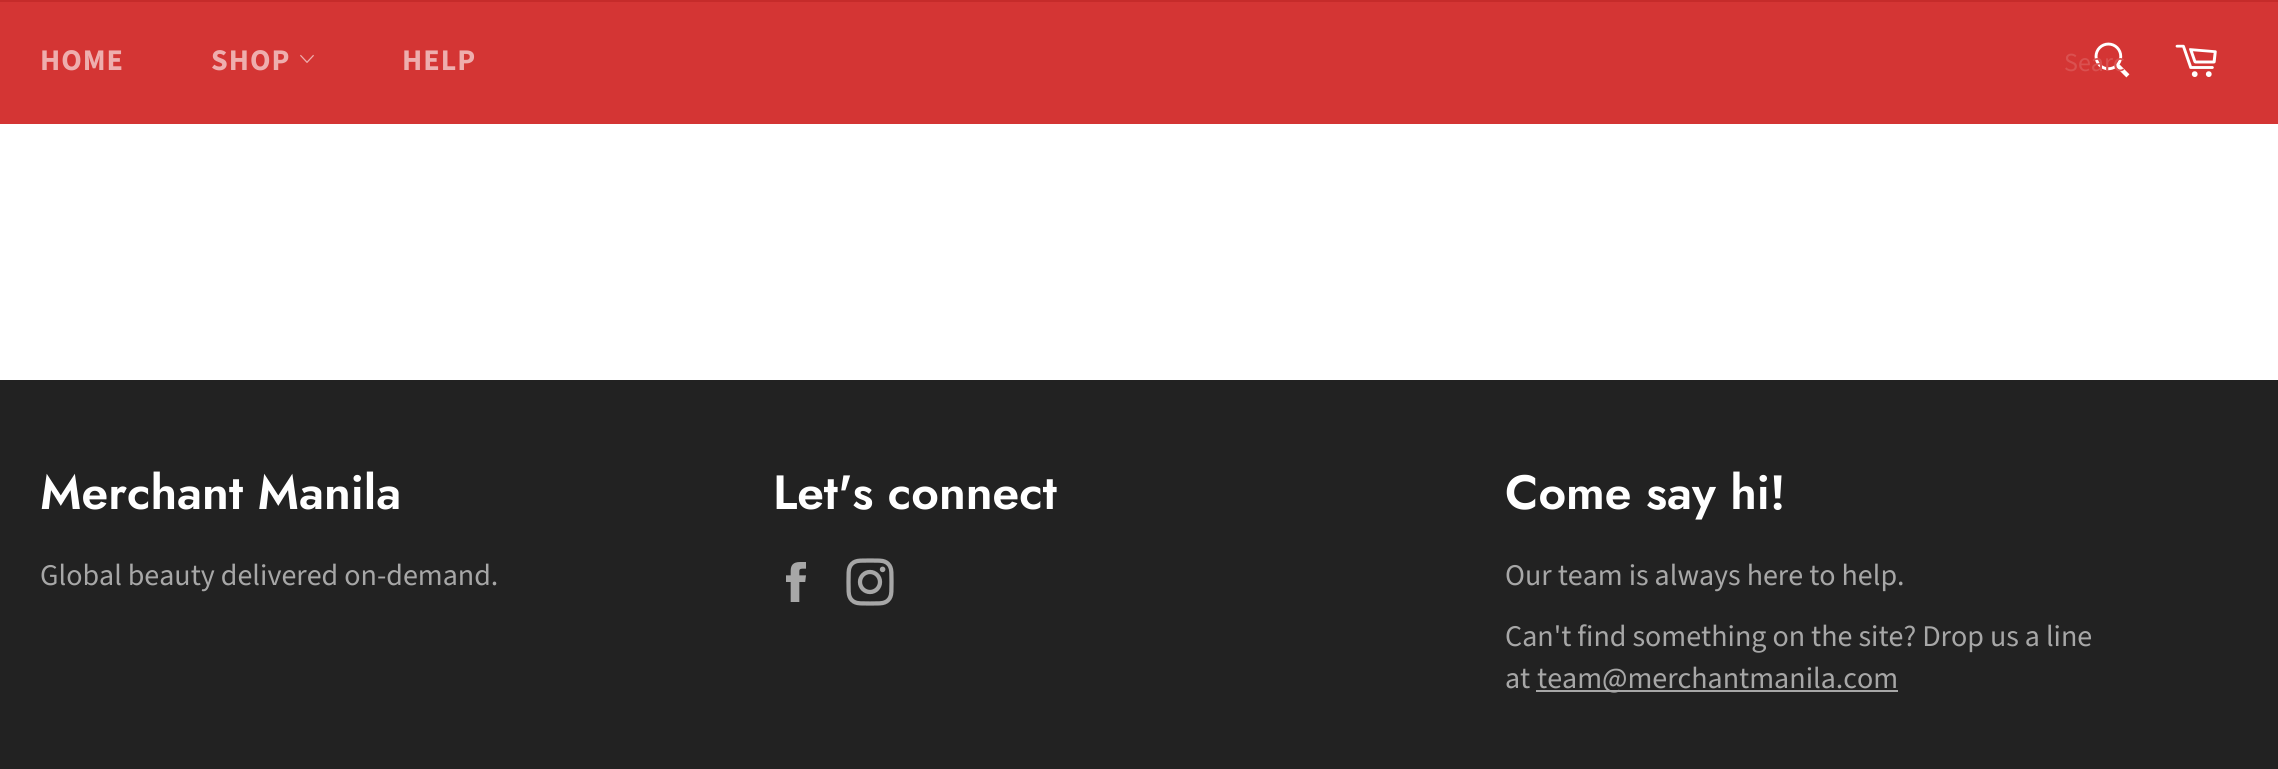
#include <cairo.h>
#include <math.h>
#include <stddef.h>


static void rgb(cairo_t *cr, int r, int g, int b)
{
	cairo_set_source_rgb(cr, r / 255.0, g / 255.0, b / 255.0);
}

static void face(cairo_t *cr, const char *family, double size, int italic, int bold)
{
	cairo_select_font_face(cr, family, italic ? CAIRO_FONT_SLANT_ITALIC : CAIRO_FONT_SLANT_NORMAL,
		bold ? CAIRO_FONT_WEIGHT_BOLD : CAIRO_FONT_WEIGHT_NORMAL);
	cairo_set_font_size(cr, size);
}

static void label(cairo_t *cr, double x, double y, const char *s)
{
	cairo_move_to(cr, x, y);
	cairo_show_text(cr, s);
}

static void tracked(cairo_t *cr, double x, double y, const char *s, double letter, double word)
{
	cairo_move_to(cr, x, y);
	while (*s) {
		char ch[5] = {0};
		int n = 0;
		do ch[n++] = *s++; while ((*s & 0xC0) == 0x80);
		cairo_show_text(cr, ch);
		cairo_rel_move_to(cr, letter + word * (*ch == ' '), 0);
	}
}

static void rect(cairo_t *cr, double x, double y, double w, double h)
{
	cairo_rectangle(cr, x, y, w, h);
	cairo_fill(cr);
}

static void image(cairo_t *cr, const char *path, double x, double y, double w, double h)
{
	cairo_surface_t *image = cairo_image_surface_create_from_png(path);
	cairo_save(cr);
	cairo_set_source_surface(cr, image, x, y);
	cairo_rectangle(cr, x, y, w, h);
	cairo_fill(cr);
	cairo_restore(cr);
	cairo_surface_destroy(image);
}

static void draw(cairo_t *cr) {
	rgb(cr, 255, 255, 255);
	cairo_paint(cr);
	rgb(cr, 212, 53, 52);
	rect(cr, 0, 2, 2278, 122);
	rgb(cr, 197, 43, 42);
	rect(cr, 0, 0, 2278, 2);
	face(cr, "Source Sans Pro", 30, 0, 1);
	rgb(cr, 238, 174, 174);
	tracked(cr, 40, 70, "HOME", 1, 0);
	tracked(cr, 211, 70, "SHOP", 1, 0);
	image(cr, "image0.png", 300, 54, 14, 9);
	tracked(cr, 402, 70, "HELP", 1, 0);
	image(cr, "image1.png", 2094, 42, 36, 36);
	face(cr, "Source Sans Pro", 26, 0, 0);
	rgb(cr, 218, 81, 80);
	label(cr, 2064, 71, "Searc");
	image(cr, "image2.png", 2175, 44, 42, 33);
	rgb(cr, 34, 34, 34);
	rect(cr, 0, 380, 2278, 389);
	face(cr, "Jost SemiBold", 48, 0, 0);
	rgb(cr, 255, 255, 255);
	label(cr, 40, 509, "Merchant Manila");
	face(cr, "Source Sans Pro", 30, 0, 0);
	rgb(cr, 167, 167, 167);
	label(cr, 40, 585, "Global beauty delivered on-demand.");
	face(cr, "Jost SemiBold", 48, 0, 0);
	rgb(cr, 255, 255, 255);
	label(cr, 773, 509, "Let's connect");
	image(cr, "image3.png", 786, 562, 20, 40);
	image(cr, "image4.png", 846, 558, 48, 48);
	label(cr, 1505, 509, "Come say hi!");
	face(cr, "Source Sans Pro", 30, 0, 0);
	rgb(cr, 167, 167, 167);
	label(cr, 1505, 585, "Our team is always here to help.");
	label(cr, 1505, 646, "Can't find something on the site? Drop us a line");
	label(cr, 1505, 688, "at");
	rect(cr, 1536, 690, 362, 2);
	label(cr, 1537, 688, "team@merchantmanila.com");
}

int main(void) {
	cairo_surface_t *surface = cairo_image_surface_create(CAIRO_FORMAT_RGB24, 2278, 769);
	cairo_t *cr = cairo_create(surface);
	cairo_font_options_t *options = cairo_font_options_create();
	cairo_font_options_set_hint_metrics(options, CAIRO_HINT_METRICS_OFF);
	cairo_font_options_set_hint_style(options, CAIRO_HINT_STYLE_NONE);
	cairo_set_font_options(cr, options);
	cairo_set_miter_limit(cr, 4);
	draw(cr);
	cairo_surface_write_to_png(surface, "render.png");
	cairo_font_options_destroy(options);
	cairo_destroy(cr);
	cairo_surface_destroy(surface);
	return 0;
}
